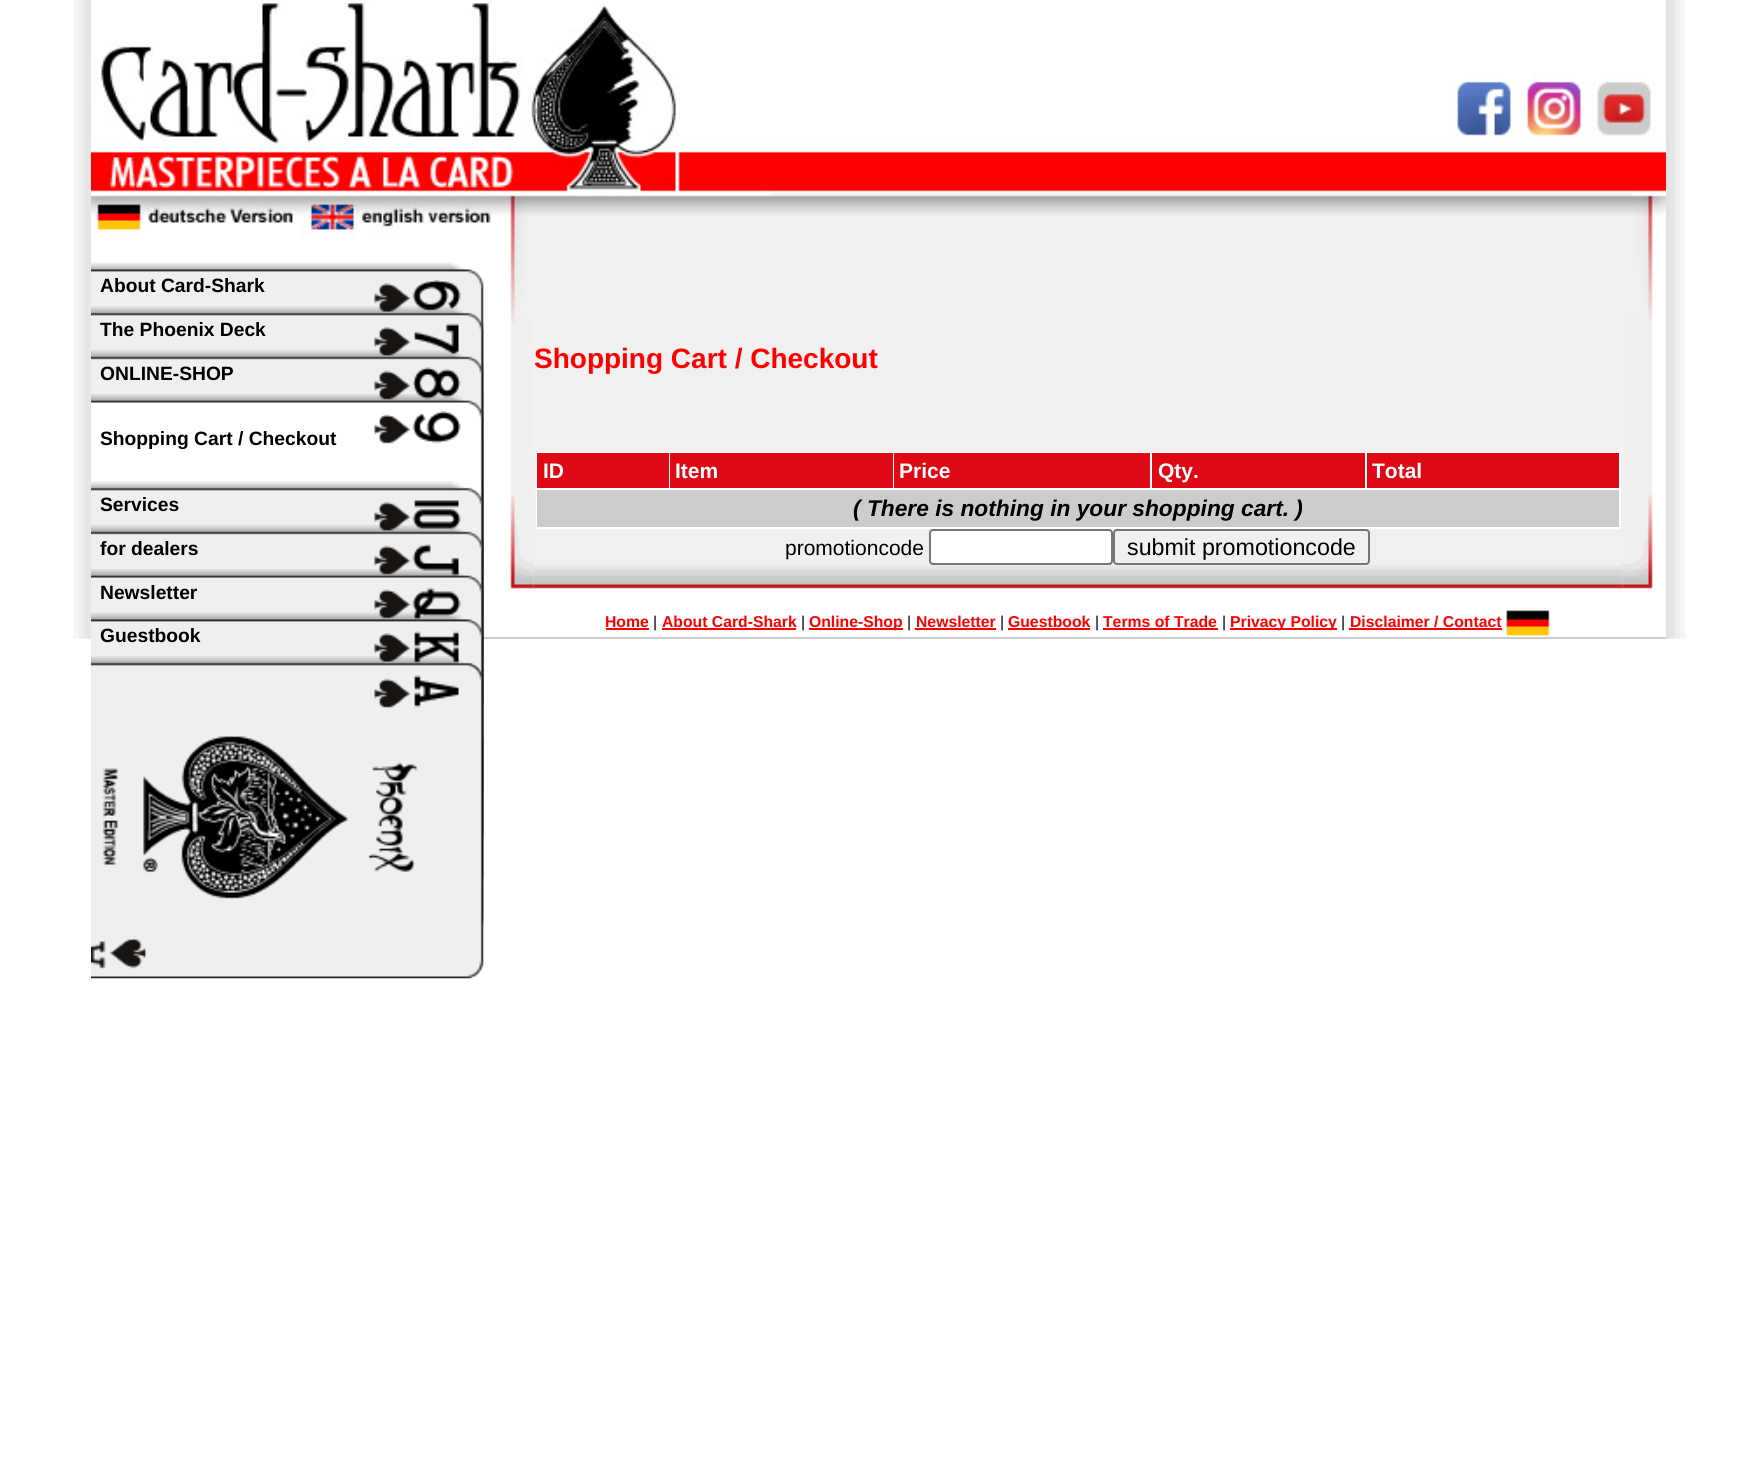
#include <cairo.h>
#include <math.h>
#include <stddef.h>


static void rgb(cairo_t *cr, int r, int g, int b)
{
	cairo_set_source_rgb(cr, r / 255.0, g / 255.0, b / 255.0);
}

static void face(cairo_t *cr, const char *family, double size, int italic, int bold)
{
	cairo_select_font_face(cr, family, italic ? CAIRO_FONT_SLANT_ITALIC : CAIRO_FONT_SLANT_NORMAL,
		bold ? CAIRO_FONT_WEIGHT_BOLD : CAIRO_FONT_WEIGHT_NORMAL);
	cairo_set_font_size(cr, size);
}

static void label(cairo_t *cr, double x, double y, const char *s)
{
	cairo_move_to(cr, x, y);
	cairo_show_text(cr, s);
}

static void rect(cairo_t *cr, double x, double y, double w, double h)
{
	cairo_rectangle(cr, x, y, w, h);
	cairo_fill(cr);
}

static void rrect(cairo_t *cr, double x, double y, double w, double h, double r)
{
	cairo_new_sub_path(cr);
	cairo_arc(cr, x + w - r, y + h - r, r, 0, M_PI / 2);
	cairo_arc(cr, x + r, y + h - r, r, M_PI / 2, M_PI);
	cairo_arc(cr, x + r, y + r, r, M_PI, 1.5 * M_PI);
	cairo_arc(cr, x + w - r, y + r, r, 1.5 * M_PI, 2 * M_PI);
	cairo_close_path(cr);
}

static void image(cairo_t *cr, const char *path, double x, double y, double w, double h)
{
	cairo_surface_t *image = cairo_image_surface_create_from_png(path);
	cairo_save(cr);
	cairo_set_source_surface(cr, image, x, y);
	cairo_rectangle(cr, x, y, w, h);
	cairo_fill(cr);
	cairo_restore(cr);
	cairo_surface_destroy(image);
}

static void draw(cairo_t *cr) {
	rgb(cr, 255, 255, 255);
	cairo_paint(cr);
	image(cr, "image0.png", 73, 0, 18, 639);
	image(cr, "image1.png", 91, 0, 1575, 315);
	image(cr, "image2.png", 91, 262, 393, 313);
	face(cr, "Liberation Sans", 19.25, 0, 1);
	rgb(cr, 0, 0, 0);
	label(cr, 100, 292, "About Card-Shark");
	image(cr, "image3.png", 374, 280, 87, 32);
	image(cr, "image4.png", 91, 306, 393, 313);
	label(cr, 100, 336, "The Phoenix Deck");
	image(cr, "image5.png", 374, 323, 85, 33);
	rgb(cr, 204, 204, 204);
	rect(cr, 482, 637, 1184, 2);
	image(cr, "image6.png", 91, 350, 393, 312);
	rgb(cr, 0, 0, 0);
	label(cr, 100, 380, "ONLINE-SHOP");
	image(cr, "image7.png", 374, 367, 87, 33);
	image(cr, "image8.png", 91, 394, 393, 312);
	label(cr, 100, 445, "Shopping Cart / Checkout");
	image(cr, "image9.png", 374, 411, 87, 33);
	image(cr, "image10.png", 91, 481, 393, 313);
	label(cr, 100, 511, "Services");
	image(cr, "image11.png", 374, 500, 87, 31);
	image(cr, "image12.png", 91, 525, 393, 312);
	label(cr, 100, 555, "for dealers");
	image(cr, "image13.png", 374, 544, 85, 33);
	image(cr, "image14.png", 91, 569, 393, 312);
	label(cr, 100, 599, "Newsletter");
	image(cr, "image15.png", 374, 587, 87, 33);
	image(cr, "image16.png", 91, 612, 393, 313);
	label(cr, 100, 642, "Guestbook");
	image(cr, "image17.png", 374, 631, 85, 33);
	image(cr, "image18.png", 91, 656, 393, 323);
	image(cr, "image19.png", 510, 315, 24, 294);
	image(cr, "image20.png", 510, 495, 24, 114);
	rgb(cr, 240, 240, 240);
	rect(cr, 534, 315, 1088, 250);
	face(cr, "Liberation Sans", 28, 0, 1);
	rgb(cr, 255, 0, 0);
	label(cr, 534, 368, "Shopping Cart / Checkout");
	rgb(cr, 255, 255, 255);
	rect(cr, 536, 452, 1085, 77);
	rgb(cr, 222, 9, 21);
	rect(cr, 537, 453, 132, 35);
	face(cr, "Liberation Sans", 21, 0, 1);
	rgb(cr, 255, 255, 255);
	label(cr, 543, 478, "ID");
	rgb(cr, 222, 9, 21);
	rect(cr, 670, 453, 223, 35);
	rgb(cr, 255, 255, 255);
	label(cr, 675, 478, "Item");
	rgb(cr, 222, 9, 21);
	rect(cr, 894, 453, 256, 35);
	rgb(cr, 255, 255, 255);
	label(cr, 899, 478, "Price");
	rgb(cr, 222, 9, 21);
	rect(cr, 1152, 453, 213, 35);
	rgb(cr, 255, 255, 255);
	label(cr, 1158, 478, "Qty.");
	rgb(cr, 222, 9, 21);
	rect(cr, 1367, 453, 252, 35);
	rgb(cr, 255, 255, 255);
	label(cr, 1372, 478, "Total");
	rgb(cr, 204, 204, 204);
	rect(cr, 537, 490, 1082, 37);
	face(cr, "Liberation Sans", 22.75, 1, 1);
	rgb(cr, 0, 0, 0);
	label(cr, 853, 516, "( There is nothing in your shopping cart. )");
	face(cr, "Liberation Sans", 21, 0, 0);
	label(cr, 785, 555, "promotioncode");
	rgb(cr, 255, 255, 255);
	rrect(cr, 930, 530, 182, 34, 3);
	cairo_fill_preserve(cr);
	rgb(cr, 118, 118, 118);
	cairo_stroke(cr);
	rrect(cr, 1114, 530, 255, 34, 3);
	cairo_stroke(cr);
	face(cr, "Liberation Sans", 23.25, 0, 0);
	rgb(cr, 0, 0, 0);
	label(cr, 1127, 555, "submit promotioncode");
	image(cr, "image21.png", 1622, 315, 31, 294);
	image(cr, "image22.png", 1622, 495, 31, 114);
	image(cr, "image23.png", 533, 565, 1090, 24);
	face(cr, "Liberation Sans", 15.75, 0, 1);
	rgb(cr, 255, 0, 0);
	label(cr, 605, 627, "Home");
	rect(cr, 606, 628, 43, 2);
	face(cr, "Liberation Sans", 15.75, 0, 0);
	rgb(cr, 0, 0, 0);
	label(cr, 653, 627, "|");
	face(cr, "Liberation Sans", 15.75, 0, 1);
	rgb(cr, 255, 0, 0);
	label(cr, 662, 627, "About Card-Shark");
	rect(cr, 662, 628, 134, 2);
	face(cr, "Liberation Sans", 15.75, 0, 0);
	rgb(cr, 0, 0, 0);
	label(cr, 801, 627, "|");
	rgb(cr, 255, 0, 0);
	rect(cr, 809, 628, 94, 2);
	face(cr, "Liberation Sans", 15.75, 0, 1);
	label(cr, 809, 627, "Online-Shop");
	face(cr, "Liberation Sans", 15.75, 0, 0);
	rgb(cr, 0, 0, 0);
	label(cr, 907, 627, "|");
	face(cr, "Liberation Sans", 15.75, 0, 1);
	rgb(cr, 255, 0, 0);
	label(cr, 916, 627, "Newsletter");
	rect(cr, 915, 628, 81, 2);
	face(cr, "Liberation Sans", 15.75, 0, 0);
	rgb(cr, 0, 0, 0);
	label(cr, 1000, 627, "|");
	face(cr, "Liberation Sans", 15.75, 0, 1);
	rgb(cr, 255, 0, 0);
	label(cr, 1008, 627, "Guestbook");
	rect(cr, 1008, 628, 82, 2);
	face(cr, "Liberation Sans", 15.75, 0, 0);
	rgb(cr, 0, 0, 0);
	label(cr, 1095, 627, "|");
	face(cr, "Liberation Sans", 15.75, 0, 1);
	rgb(cr, 255, 0, 0);
	label(cr, 1103, 627, "Terms of Trade");
	rect(cr, 1103, 628, 115, 2);
	face(cr, "Liberation Sans", 15.75, 0, 0);
	rgb(cr, 0, 0, 0);
	label(cr, 1222, 627, "|");
	rgb(cr, 255, 0, 0);
	rect(cr, 1230, 628, 107, 2);
	face(cr, "Liberation Sans", 15.75, 0, 1);
	label(cr, 1230, 627, "Privacy Policy");
	face(cr, "Liberation Sans", 15.75, 0, 0);
	rgb(cr, 0, 0, 0);
	label(cr, 1341, 627, "|");
	face(cr, "Liberation Sans", 15.75, 0, 1);
	rgb(cr, 255, 0, 0);
	label(cr, 1350, 627, "Disclaimer / Contact");
	rect(cr, 1349, 628, 153, 2);
	image(cr, "image24.png", 1506, 610, 44, 26);
	image(cr, "image25.png", 1666, 0, 19, 639);
}

int main(void) {
	cairo_surface_t *surface = cairo_image_surface_create(CAIRO_FORMAT_RGB24, 1757, 1479);
	cairo_t *cr = cairo_create(surface);
	cairo_font_options_t *options = cairo_font_options_create();
	cairo_font_options_set_hint_metrics(options, CAIRO_HINT_METRICS_OFF);
	cairo_font_options_set_hint_style(options, CAIRO_HINT_STYLE_NONE);
	cairo_set_font_options(cr, options);
	cairo_set_miter_limit(cr, 4);
	draw(cr);
	cairo_surface_write_to_png(surface, "render.png");
	cairo_font_options_destroy(options);
	cairo_destroy(cr);
	cairo_surface_destroy(surface);
	return 0;
}
